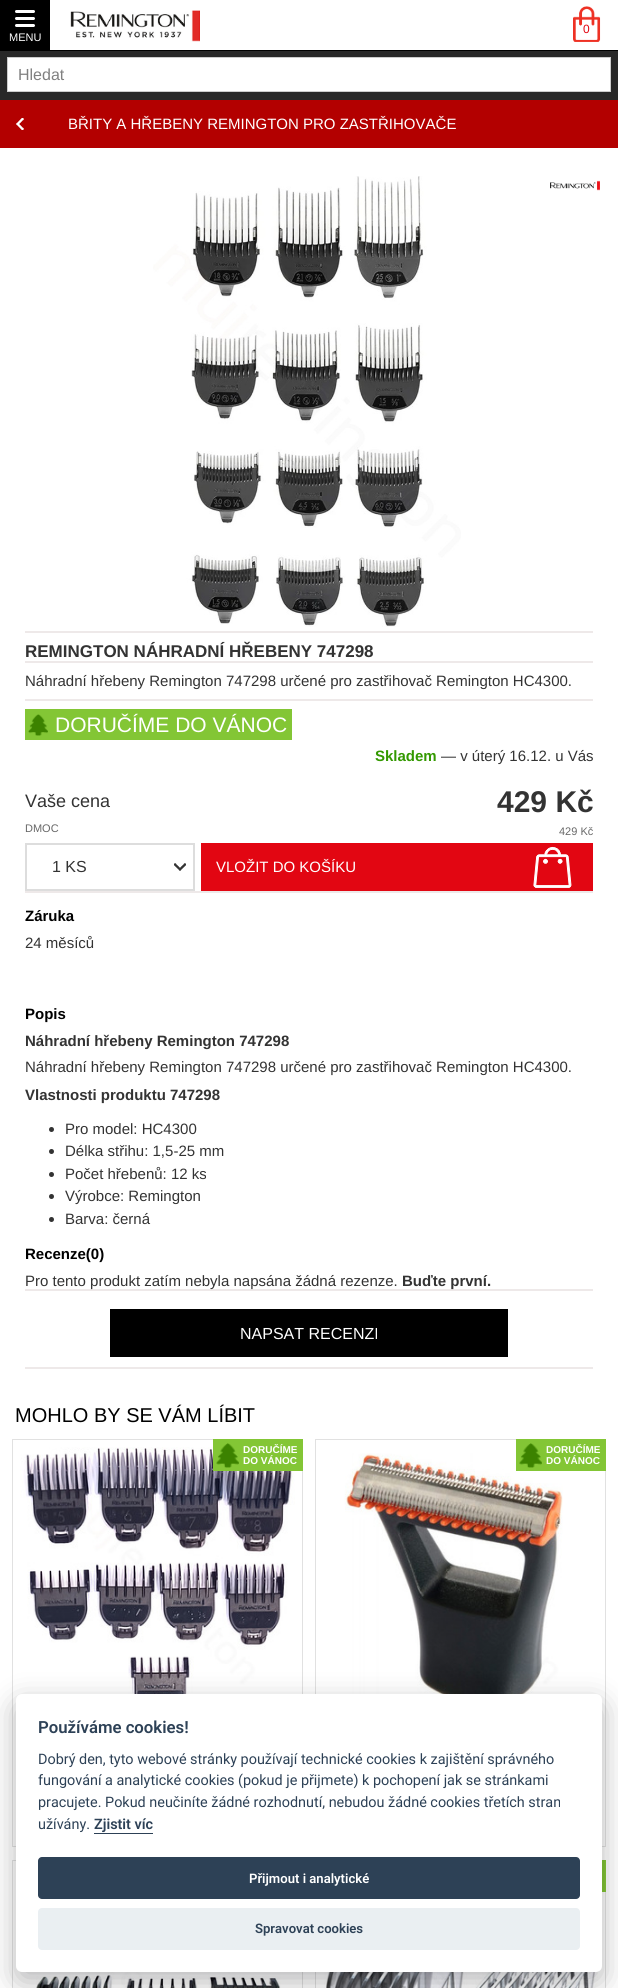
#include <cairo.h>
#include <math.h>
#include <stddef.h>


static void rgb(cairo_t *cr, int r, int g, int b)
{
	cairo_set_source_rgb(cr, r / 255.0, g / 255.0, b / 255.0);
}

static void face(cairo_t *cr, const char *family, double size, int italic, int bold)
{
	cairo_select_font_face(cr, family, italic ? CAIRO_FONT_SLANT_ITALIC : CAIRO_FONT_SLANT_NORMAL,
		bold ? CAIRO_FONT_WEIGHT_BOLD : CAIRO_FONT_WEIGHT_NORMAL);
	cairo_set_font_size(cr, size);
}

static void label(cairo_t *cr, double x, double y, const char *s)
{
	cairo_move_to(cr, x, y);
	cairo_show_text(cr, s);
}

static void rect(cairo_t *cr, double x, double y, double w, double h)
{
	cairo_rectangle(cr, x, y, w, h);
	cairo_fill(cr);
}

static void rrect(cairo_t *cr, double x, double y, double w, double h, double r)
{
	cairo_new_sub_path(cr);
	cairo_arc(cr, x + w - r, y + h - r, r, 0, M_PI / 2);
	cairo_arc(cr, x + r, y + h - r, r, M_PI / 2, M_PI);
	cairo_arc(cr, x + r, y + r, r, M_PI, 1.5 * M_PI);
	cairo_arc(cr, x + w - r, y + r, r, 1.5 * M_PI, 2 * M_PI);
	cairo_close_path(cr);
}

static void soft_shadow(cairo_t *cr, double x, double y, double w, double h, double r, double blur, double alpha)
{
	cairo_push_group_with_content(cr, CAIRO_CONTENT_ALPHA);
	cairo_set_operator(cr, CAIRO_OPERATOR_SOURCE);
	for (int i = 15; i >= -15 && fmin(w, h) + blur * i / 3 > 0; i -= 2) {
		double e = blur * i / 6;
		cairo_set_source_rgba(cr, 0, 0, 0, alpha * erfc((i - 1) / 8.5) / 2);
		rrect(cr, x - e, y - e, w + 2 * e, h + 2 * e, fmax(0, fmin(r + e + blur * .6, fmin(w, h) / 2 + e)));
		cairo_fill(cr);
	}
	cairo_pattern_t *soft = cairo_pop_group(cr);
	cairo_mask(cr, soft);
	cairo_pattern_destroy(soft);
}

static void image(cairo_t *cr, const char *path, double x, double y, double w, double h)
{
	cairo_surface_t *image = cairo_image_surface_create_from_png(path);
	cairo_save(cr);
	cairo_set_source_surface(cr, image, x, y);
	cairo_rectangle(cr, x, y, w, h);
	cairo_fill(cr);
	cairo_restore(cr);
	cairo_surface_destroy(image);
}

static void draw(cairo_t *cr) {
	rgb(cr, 255, 255, 255);
	cairo_paint(cr);
	image(cr, "image0.png", 70, 10, 130, 32);
	face(cr, "Liberation Sans", 12, 0, 0);
	rgb(cr, 226, 6, 18);
	label(cr, 583, 33, "0");
	image(cr, "image1.png", 573, 6, 28, 36);
	rgb(cr, 0, 0, 0);
	rect(cr, 0, 0, 50, 50);
	rgb(cr, 255, 255, 255);
	rrect(cr, 15, 10, 20, 3, 1.5);
	cairo_fill(cr);
	rrect(cr, 15, 17, 20, 3, 1.5);
	cairo_fill(cr);
	rrect(cr, 15, 24, 20, 3, 1.5);
	cairo_fill(cr);
	face(cr, "Liberation Sans", 11, 0, 0);
	label(cr, 9, 41, "MENU");
	rgb(cr, 0, 0, 0);
	rect(cr, 0, 50, 618, 1);
	rgb(cr, 40, 40, 40);
	rect(cr, 0, 51, 618, 49);
	rgb(cr, 255, 255, 255);
	cairo_rectangle(cr, 7.5, 57.5, 603, 34);
	cairo_fill_preserve(cr);
	rgb(cr, 204, 204, 204);
	cairo_set_line_width(cr, 1);
	cairo_stroke(cr);
	face(cr, "Liberation Sans", 16, 0, 0);
	rgb(cr, 128, 128, 128);
	label(cr, 18, 80, "Hledat");
	rgb(cr, 179, 0, 0);
	rect(cr, 0, 100, 618, 48);
	image(cr, "image2.png", 16, 118, 8, 12);
	face(cr, "Liberation Sans", 15, 0, 0);
	rgb(cr, 255, 255, 255);
	label(cr, 68, 129, "BŘITY A HŘEBENY REMINGTON PRO ZASTŘIHOVAČE");
	rgb(cr, 238, 233, 233);
	rect(cr, 25, 631, 568, 2);
	image(cr, "image3.png", 153, 176, 308, 451);
	image(cr, "image4.png", 550, 180, 50, 11);
	rect(cr, 25, 661, 568, 2);
	face(cr, "Liberation Sans", 17, 0, 1);
	rgb(cr, 51, 51, 51);
	label(cr, 25, 657, "REMINGTON NÁHRADNÍ HŘEBENY 747298");
	rgb(cr, 238, 233, 233);
	rect(cr, 25, 699, 568, 2);
	face(cr, "Liberation Sans", 15, 0, 0);
	rgb(cr, 51, 51, 51);
	label(cr, 25, 686, "Náhradní hřebeny Remington 747298 určené pro zastřihovač Remington HC4300.");
	rgb(cr, 238, 233, 233);
	rect(cr, 25, 891, 568, 2);
	rgb(cr, 131, 198, 53);
	rect(cr, 25, 709, 267, 31);
	image(cr, "image5.png", 28, 714, 20, 22);
	face(cr, "Liberation Sans", 21, 0, 0);
	rgb(cr, 255, 255, 255);
	label(cr, 55, 732, "DORUČÍME DO VÁNOC");
	face(cr, "Liberation Sans", 15, 0, 1);
	rgb(cr, 51, 153, 0);
	label(cr, 375, 761, "Skladem");
	face(cr, "Liberation Sans", 15, 0, 0);
	rgb(cr, 51, 51, 51);
	label(cr, 441, 761, "— v úterý 16.12. u Vás");
	face(cr, "Liberation Sans", 18, 0, 0);
	label(cr, 25, 807, "Vaše cena");
	face(cr, "Liberation Sans", 30, 0, 1);
	label(cr, 497, 812, "429 Kč");
	face(cr, "Liberation Sans", 11, 0, 0);
	rgb(cr, 104, 104, 104);
	label(cr, 25, 832, "DMOC");
	label(cr, 559, 835, "429 Kč");
	image(cr, "image6.png", 174, 863, 12, 8);
	cairo_rectangle(cr, 26, 844, 168, 46);
	rgb(cr, 221, 221, 221);
	cairo_set_line_width(cr, 2);
	cairo_stroke(cr);
	face(cr, "Liberation Sans", 16, 0, 0);
	rgb(cr, 51, 51, 51);
	label(cr, 52, 872, "1 KS");
	rgb(cr, 226, 6, 18);
	rect(cr, 201, 843, 392, 48);
	image(cr, "image7.png", 533, 846, 39, 42);
	face(cr, "Liberation Sans", 15, 0, 0);
	rgb(cr, 255, 255, 255);
	label(cr, 216, 872, "VLOŽIT DO KOŠÍKU");
	face(cr, "Liberation Sans", 15, 0, 1);
	rgb(cr, 0, 0, 0);
	label(cr, 25, 921, "Záruka");
	face(cr, "Liberation Sans", 15, 0, 0);
	rgb(cr, 51, 51, 51);
	label(cr, 25, 948, "24 měsíců");
	rgb(cr, 238, 233, 233);
	rect(cr, 25, 1367, 568, 2);
	face(cr, "Liberation Sans", 15, 0, 1);
	rgb(cr, 0, 0, 0);
	label(cr, 25, 1019, "Popis");
	rgb(cr, 51, 51, 51);
	label(cr, 25, 1046, "Náhradní hřebeny Remington 747298");
	face(cr, "Liberation Sans", 15, 0, 0);
	label(cr, 25, 1072, "Náhradní hřebeny Remington 747298 určené pro zastřihovač Remington HC4300.");
	face(cr, "Liberation Sans", 15, 0, 1);
	label(cr, 25, 1100, "Vlastnosti produktu 747298");
	cairo_new_path(cr);
	cairo_arc(cr, 51.5, 1129.5, 2.5, 0, 2 * M_PI);
	cairo_fill(cr);
	face(cr, "Liberation Sans", 15, 0, 0);
	label(cr, 65, 1134, "Pro model: HC4300");
	cairo_new_path(cr);
	cairo_arc(cr, 51.5, 1151.5, 2.5, 0, 2 * M_PI);
	cairo_fill(cr);
	label(cr, 65, 1156, "Délka střihu: 1,5-25 mm");
	cairo_new_path(cr);
	cairo_arc(cr, 51.5, 1174.5, 2.5, 0, 2 * M_PI);
	cairo_fill(cr);
	label(cr, 65, 1179, "Počet hřebenů: 12 ks");
	cairo_new_path(cr);
	cairo_arc(cr, 51.5, 1196.5, 2.5, 0, 2 * M_PI);
	cairo_fill(cr);
	label(cr, 65, 1201, "Výrobce: Remington");
	cairo_new_path(cr);
	cairo_arc(cr, 51.5, 1219.5, 2.5, 0, 2 * M_PI);
	cairo_fill(cr);
	label(cr, 65, 1224, "Barva: černá");
	face(cr, "Liberation Sans", 15, 0, 1);
	rgb(cr, 0, 0, 0);
	label(cr, 25, 1259, "Recenze(0)");
	rgb(cr, 238, 233, 233);
	rect(cr, 25, 1289, 568, 2);
	face(cr, "Liberation Sans", 15, 0, 0);
	rgb(cr, 51, 51, 51);
	label(cr, 25, 1286, "Pro tento produkt zatím nebyla napsána žádná rezenze.");
	face(cr, "Liberation Sans", 15, 0, 1);
	label(cr, 402, 1286, "Buďte první.");
	rgb(cr, 0, 0, 0);
	rect(cr, 110, 1309, 398, 48);
	face(cr, "Liberation Sans", 16, 0, 0);
	rgb(cr, 255, 255, 255);
	label(cr, 240, 1339, "NAPSAT RECENZI");
	face(cr, "Liberation Sans", 20, 0, 0);
	rgb(cr, 0, 0, 0);
	label(cr, 15, 1422, "MOHLO BY SE VÁM LÍBIT");
	cairo_rectangle(cr, 12.5, 1439.5, 290, 407);
	rgb(cr, 225, 225, 225);
	cairo_set_line_width(cr, 1);
	cairo_stroke(cr);
	image(cr, "image9.png", 16, 1447, 279, 253);
	rgb(cr, 131, 198, 53);
	rect(cr, 213, 1439, 90, 32);
	image(cr, "image8.png", 216, 1443, 23, 25);
	face(cr, "Liberation Sans", 10, 0, 1);
	rgb(cr, 255, 255, 255);
	label(cr, 243, 1453, "DORUČÍME");
	label(cr, 243, 1464, "DO VÁNOC");
	cairo_rectangle(cr, 315.5, 1439.5, 290, 407);
	rgb(cr, 225, 225, 225);
	cairo_stroke(cr);
	image(cr, "image10.png", 344, 1453, 219, 241);
	rgb(cr, 131, 198, 53);
	rect(cr, 516, 1439, 90, 32);
	image(cr, "image8.png", 519, 1443, 23, 25);
	rgb(cr, 255, 255, 255);
	label(cr, 546, 1453, "DORUČÍME");
	label(cr, 546, 1464, "DO VÁNOC");
	cairo_rectangle(cr, 12.5, 1860.5, 290, 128);
	rgb(cr, 225, 225, 225);
	cairo_stroke(cr);
	image(cr, "image11.png", 36, 1972, 245, 16);
	cairo_rectangle(cr, 315.5, 1860.5, 290, 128);
	cairo_stroke(cr);
	rgb(cr, 131, 198, 53);
	rect(cr, 602, 1860, 4, 32);
	image(cr, "image12.png", 324, 1971, 274, 17);
	rgb(cr, 2, 2, 3);
	soft_shadow(cr, 16, 1704, 586, 278, 6, 15, 0.28);
	rgb(cr, 255, 255, 255);
	rrect(cr, 16, 1694, 586, 278, 6);
	cairo_fill(cr);
	face(cr, "Roboto SemiBold", 16.75, 0, 0);
	rgb(cr, 45, 65, 86);
	label(cr, 38, 1733, "Používáme cookies!");
	face(cr, "Roboto", 14.4, 0, 0);
	label(cr, 38, 1764, "Dobrý den, tyto webové stránky používají technické cookies k zajištění správného");
	label(cr, 38, 1785, "fungování a analytické cookies (pokud je přijmete) k pochopení jak se stránkami");
	label(cr, 38, 1807, "pracujete. Pokud neučiníte žádné rozhodnutí, nebudou žádné cookies třetích stran");
	label(cr, 38, 1829, "užívány.");
	face(cr, "Roboto SemiBold", 14.4, 0, 0);
	label(cr, 94, 1829, "Zjistit víc");
	rect(cr, 94, 1833, 59, 1);
	rrect(cr, 38, 1857, 542, 42, 4);
	cairo_fill(cr);
	face(cr, "Roboto SemiBold", 13.1, 0, 0);
	rgb(cr, 255, 255, 255);
	label(cr, 249, 1883, "Přijmout i analytické");
	rgb(cr, 234, 239, 242);
	rrect(cr, 38, 1908, 542, 42, 4);
	cairo_fill(cr);
	rgb(cr, 45, 65, 86);
	label(cr, 255, 1933, "Spravovat cookies");
}

int main(void) {
	cairo_surface_t *surface = cairo_image_surface_create(CAIRO_FORMAT_RGB24, 618, 1988);
	cairo_t *cr = cairo_create(surface);
	cairo_font_options_t *options = cairo_font_options_create();
	cairo_font_options_set_hint_metrics(options, CAIRO_HINT_METRICS_OFF);
	cairo_font_options_set_hint_style(options, CAIRO_HINT_STYLE_NONE);
	cairo_set_font_options(cr, options);
	cairo_set_miter_limit(cr, 4);
	draw(cr);
	cairo_surface_write_to_png(surface, "render.png");
	cairo_font_options_destroy(options);
	cairo_destroy(cr);
	cairo_surface_destroy(surface);
	return 0;
}
